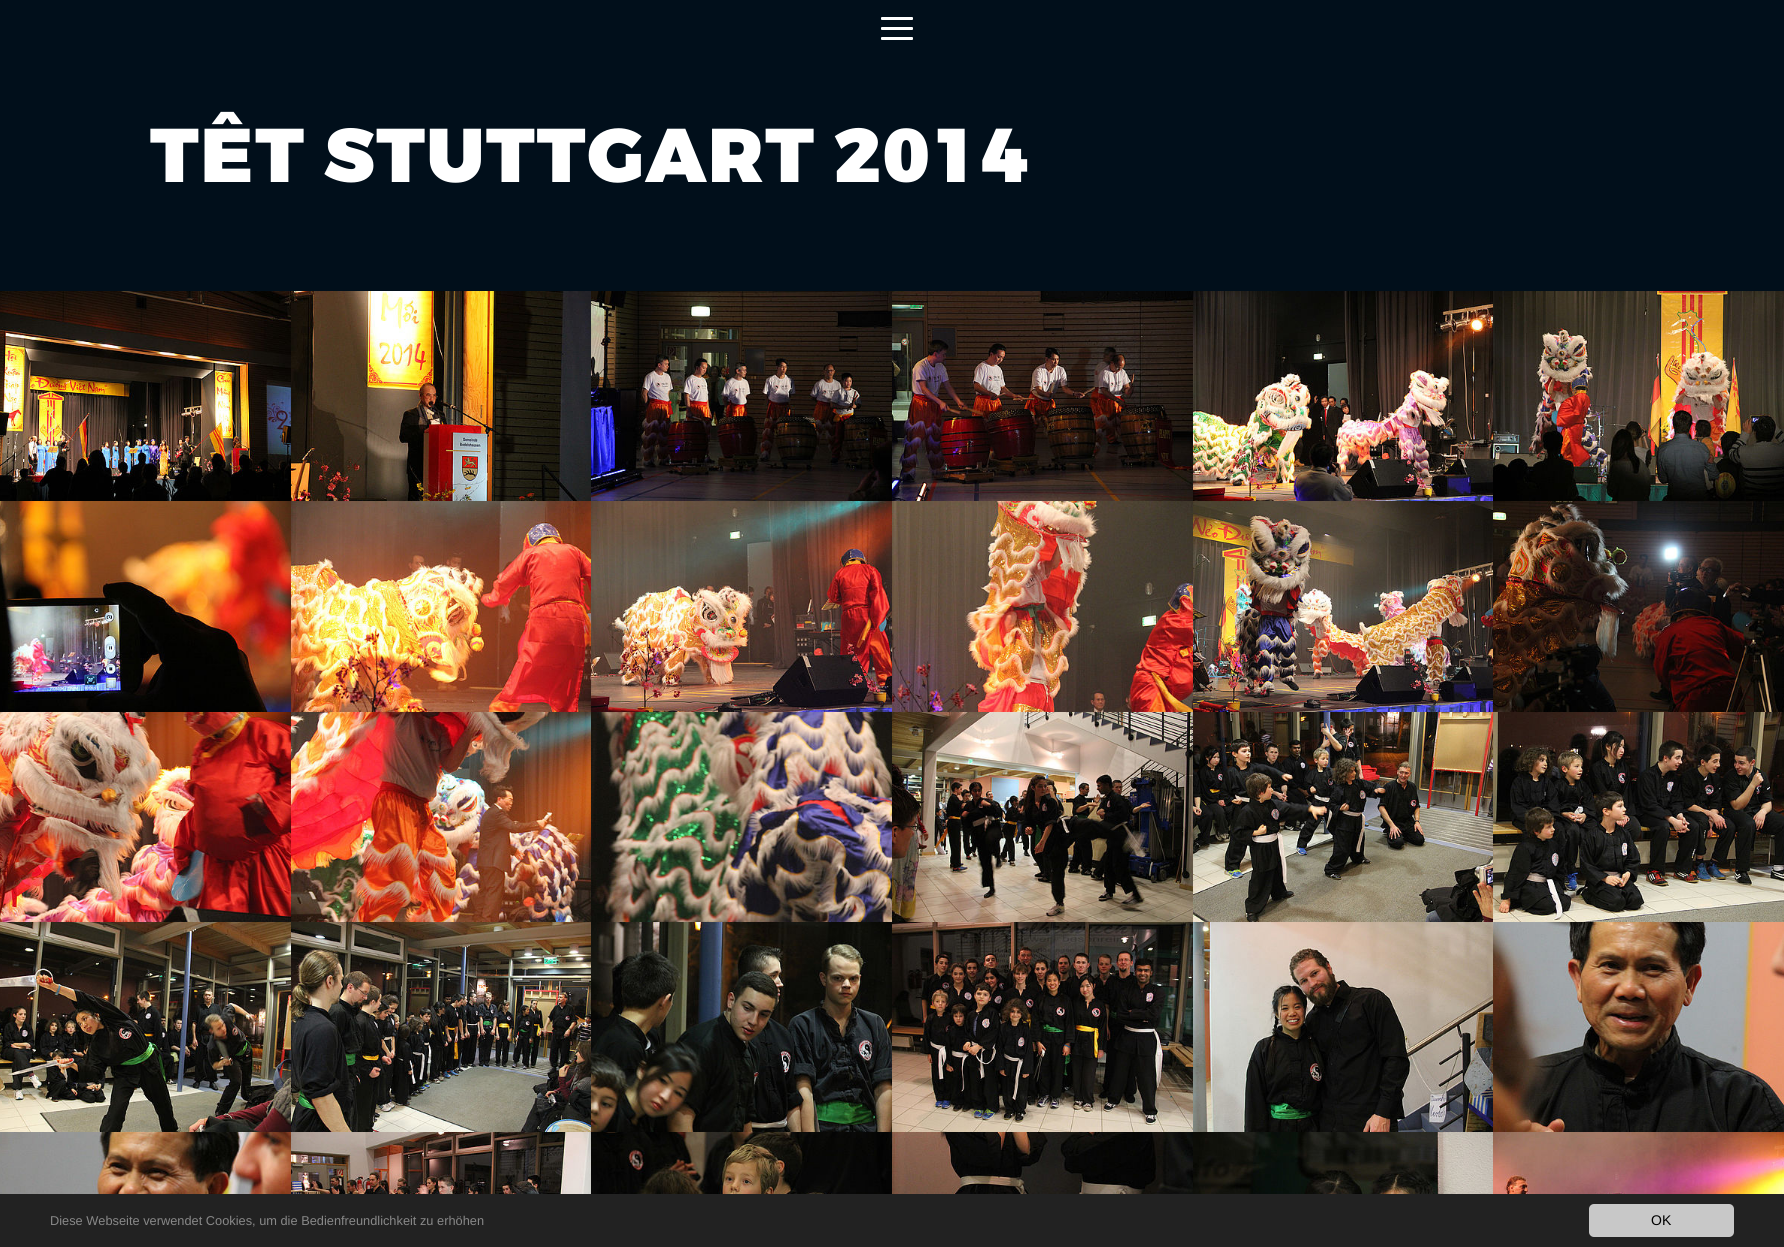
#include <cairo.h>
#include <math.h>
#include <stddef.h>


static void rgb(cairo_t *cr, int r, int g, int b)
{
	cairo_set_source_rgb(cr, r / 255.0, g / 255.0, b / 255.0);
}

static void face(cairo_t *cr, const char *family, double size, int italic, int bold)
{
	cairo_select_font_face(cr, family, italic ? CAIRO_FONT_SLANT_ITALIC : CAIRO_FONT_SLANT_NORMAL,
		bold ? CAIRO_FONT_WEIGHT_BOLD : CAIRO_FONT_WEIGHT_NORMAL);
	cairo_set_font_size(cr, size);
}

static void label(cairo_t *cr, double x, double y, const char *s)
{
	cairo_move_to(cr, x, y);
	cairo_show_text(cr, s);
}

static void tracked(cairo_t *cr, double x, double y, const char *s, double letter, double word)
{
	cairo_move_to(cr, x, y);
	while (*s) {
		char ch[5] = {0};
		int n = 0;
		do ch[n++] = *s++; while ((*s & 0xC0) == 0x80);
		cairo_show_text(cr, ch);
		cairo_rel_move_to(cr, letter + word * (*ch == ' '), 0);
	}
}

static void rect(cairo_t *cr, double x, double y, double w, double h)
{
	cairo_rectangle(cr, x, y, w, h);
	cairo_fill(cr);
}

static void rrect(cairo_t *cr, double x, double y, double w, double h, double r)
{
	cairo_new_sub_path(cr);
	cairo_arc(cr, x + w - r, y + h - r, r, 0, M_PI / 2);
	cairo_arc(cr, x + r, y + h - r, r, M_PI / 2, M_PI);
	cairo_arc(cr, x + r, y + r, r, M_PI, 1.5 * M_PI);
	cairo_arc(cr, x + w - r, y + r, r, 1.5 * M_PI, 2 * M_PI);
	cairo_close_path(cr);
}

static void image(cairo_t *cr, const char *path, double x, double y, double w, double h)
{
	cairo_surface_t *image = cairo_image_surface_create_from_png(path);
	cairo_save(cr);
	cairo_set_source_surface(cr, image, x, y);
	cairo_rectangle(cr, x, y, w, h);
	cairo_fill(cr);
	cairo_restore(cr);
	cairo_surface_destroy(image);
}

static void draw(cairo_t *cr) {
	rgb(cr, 1, 15, 27);
	cairo_paint(cr);
	rgb(cr, 255, 255, 255);
	rrect(cr, 881, 17, 32, 3, 1);
	cairo_fill(cr);
	rrect(cr, 881, 27, 32, 3, 1);
	cairo_fill(cr);
	rrect(cr, 881, 37, 32, 3, 1);
	cairo_fill(cr);
	face(cr, "Montserrat Black", 76, 0, 0);
	tracked(cr, 150, 182, "TÊT STUTTGART 2014", 2, 0);
	image(cr, "image0.png", 0, 291, 291, 210);
	image(cr, "image1.png", 291, 291, 300, 210);
	image(cr, "image2.png", 591, 291, 301, 210);
	image(cr, "image3.png", 892, 291, 301, 210);
	image(cr, "image4.png", 1193, 291, 300, 210);
	image(cr, "image5.png", 1493, 291, 291, 210);
	image(cr, "image6.png", 0, 501, 291, 211);
	image(cr, "image7.png", 291, 501, 300, 211);
	image(cr, "image8.png", 591, 501, 301, 211);
	image(cr, "image9.png", 892, 501, 301, 211);
	image(cr, "image10.png", 1193, 501, 300, 211);
	image(cr, "image11.png", 1493, 501, 291, 211);
	image(cr, "image12.png", 0, 712, 291, 210);
	image(cr, "image13.png", 291, 712, 300, 210);
	image(cr, "image14.png", 591, 712, 301, 210);
	image(cr, "image15.png", 892, 712, 301, 210);
	image(cr, "image16.png", 1193, 712, 300, 210);
	image(cr, "image17.png", 1493, 712, 291, 210);
	image(cr, "image18.png", 0, 922, 291, 210);
	image(cr, "image19.png", 291, 922, 300, 210);
	image(cr, "image20.png", 591, 922, 301, 210);
	image(cr, "image21.png", 892, 922, 301, 210);
	image(cr, "image22.png", 1193, 922, 300, 210);
	image(cr, "image23.png", 1493, 922, 291, 210);
	image(cr, "image24.png", 0, 1132, 291, 62);
	image(cr, "image25.png", 291, 1132, 300, 62);
	image(cr, "image26.png", 591, 1132, 301, 62);
	image(cr, "image27.png", 892, 1132, 301, 62);
	image(cr, "image28.png", 1193, 1132, 300, 62);
	image(cr, "image29.png", 1493, 1132, 291, 62);
	rgb(cr, 34, 34, 34);
	rect(cr, 0, 1194, 1784, 53);
	face(cr, "Liberation Sans", 12.8, 0, 0);
	rgb(cr, 136, 136, 136);
	label(cr, 50, 1225, "Diese Webseite verwendet Cookies, um die Bedienfreundlichkeit zu erhöhen");
	rgb(cr, 200, 200, 200);
	rrect(cr, 1589, 1204, 145, 33, 5);
	cairo_fill(cr);
	face(cr, "Liberation Sans", 14, 0, 0);
	rgb(cr, 0, 0, 0);
	label(cr, 1651, 1225, "OK");
}

int main(void) {
	cairo_surface_t *surface = cairo_image_surface_create(CAIRO_FORMAT_RGB24, 1784, 1247);
	cairo_t *cr = cairo_create(surface);
	cairo_font_options_t *options = cairo_font_options_create();
	cairo_font_options_set_hint_metrics(options, CAIRO_HINT_METRICS_OFF);
	cairo_font_options_set_hint_style(options, CAIRO_HINT_STYLE_NONE);
	cairo_set_font_options(cr, options);
	cairo_set_miter_limit(cr, 4);
	draw(cr);
	cairo_surface_write_to_png(surface, "render.png");
	cairo_font_options_destroy(options);
	cairo_destroy(cr);
	cairo_surface_destroy(surface);
	return 0;
}
